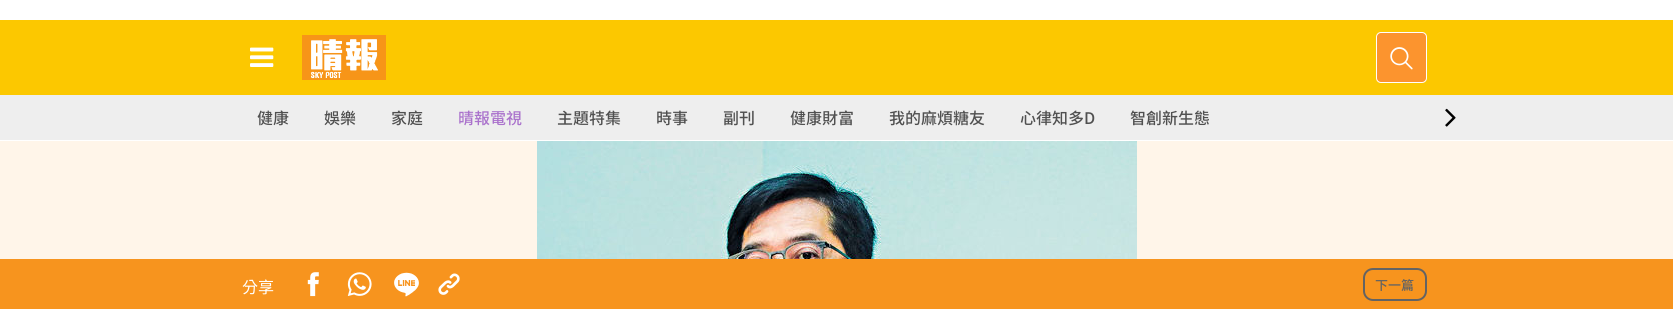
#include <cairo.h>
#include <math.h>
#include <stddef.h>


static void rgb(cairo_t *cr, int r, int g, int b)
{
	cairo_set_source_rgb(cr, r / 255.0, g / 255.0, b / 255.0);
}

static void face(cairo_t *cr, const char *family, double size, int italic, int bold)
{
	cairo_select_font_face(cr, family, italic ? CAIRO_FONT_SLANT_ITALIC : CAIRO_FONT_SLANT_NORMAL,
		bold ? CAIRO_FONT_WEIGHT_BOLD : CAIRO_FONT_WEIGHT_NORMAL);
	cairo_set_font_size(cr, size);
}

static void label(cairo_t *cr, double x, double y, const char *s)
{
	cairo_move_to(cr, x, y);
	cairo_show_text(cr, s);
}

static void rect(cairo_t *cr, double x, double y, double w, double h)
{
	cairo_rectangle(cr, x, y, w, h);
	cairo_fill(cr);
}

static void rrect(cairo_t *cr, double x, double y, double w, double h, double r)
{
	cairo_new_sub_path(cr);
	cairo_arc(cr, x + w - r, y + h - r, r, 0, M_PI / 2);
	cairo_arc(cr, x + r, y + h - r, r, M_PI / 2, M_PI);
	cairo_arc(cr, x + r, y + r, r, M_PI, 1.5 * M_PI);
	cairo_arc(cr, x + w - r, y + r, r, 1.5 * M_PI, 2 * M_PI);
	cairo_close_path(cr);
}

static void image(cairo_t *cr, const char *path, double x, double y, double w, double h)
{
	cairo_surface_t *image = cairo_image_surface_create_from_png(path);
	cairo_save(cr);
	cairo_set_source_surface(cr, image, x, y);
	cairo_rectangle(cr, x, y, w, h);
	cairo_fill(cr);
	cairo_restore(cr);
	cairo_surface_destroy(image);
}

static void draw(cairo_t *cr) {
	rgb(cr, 255, 255, 255);
	cairo_paint(cr);
	rgb(cr, 252, 200, 0);
	rect(cr, 0, 20, 1673, 75);
	image(cr, "image0.png", 250, 47, 24, 20);
	image(cr, "image1.png", 302, 35, 84, 45);
	rgb(cr, 252, 148, 46);
	rrect(cr, 1376.5, 32.5, 50, 50, 4.5);
	cairo_fill_preserve(cr);
	rgb(cr, 255, 255, 255);
	cairo_set_line_width(cr, 1);
	cairo_stroke(cr);
	image(cr, "image2.png", 1390, 47, 23, 23);
	rgb(cr, 238, 238, 238);
	rect(cr, 0, 95, 1673, 45);
	face(cr, "Noto Sans TC Medium", 16, 0, 0);
	rgb(cr, 80, 80, 80);
	label(cr, 257, 124, "健康");
	label(cr, 324, 124, "娛樂");
	label(cr, 391, 124, "家庭");
	rgb(cr, 170, 114, 204);
	label(cr, 458, 124, "晴報電視");
	rgb(cr, 80, 80, 80);
	label(cr, 557, 124, "主題特集");
	label(cr, 656, 124, "時事");
	label(cr, 723, 124, "副刊");
	label(cr, 790, 124, "健康財富");
	label(cr, 889, 124, "我的麻煩糖友");
	label(cr, 1020, 124, "心律知多D");
	label(cr, 1130, 124, "智創新生態");
	image(cr, "image3.png", 1445, 108, 11, 19);
	rgb(cr, 255, 245, 233);
	rect(cr, 0, 141, 1673, 118);
	image(cr, "image4.png", 537, 141, 600, 118);
	rgb(cr, 247, 148, 30);
	rect(cr, 0, 259, 1673, 50);
	face(cr, "Noto Sans TC Thin", 16, 0, 0);
	rgb(cr, 255, 255, 255);
	label(cr, 242, 293, "分享");
	image(cr, "image5.png", 307, 272, 12, 25);
	image(cr, "image6.png", 347, 272, 25, 24);
	image(cr, "image7.png", 394, 272, 25, 25);
	image(cr, "image8.png", 438, 273, 22, 22);
	rrect(cr, 1364, 269, 62, 31, 9);
	rgb(cr, 99, 99, 99);
	cairo_set_line_width(cr, 2);
	cairo_stroke(cr);
	face(cr, "Noto Sans TC Medium", 13, 0, 0);
	label(cr, 1375, 290, "下一篇");
}

int main(void) {
	cairo_surface_t *surface = cairo_image_surface_create(CAIRO_FORMAT_RGB24, 1673, 309);
	cairo_t *cr = cairo_create(surface);
	cairo_font_options_t *options = cairo_font_options_create();
	cairo_font_options_set_hint_metrics(options, CAIRO_HINT_METRICS_OFF);
	cairo_font_options_set_hint_style(options, CAIRO_HINT_STYLE_NONE);
	cairo_set_font_options(cr, options);
	cairo_set_miter_limit(cr, 4);
	draw(cr);
	cairo_surface_write_to_png(surface, "render.png");
	cairo_font_options_destroy(options);
	cairo_destroy(cr);
	cairo_surface_destroy(surface);
	return 0;
}
